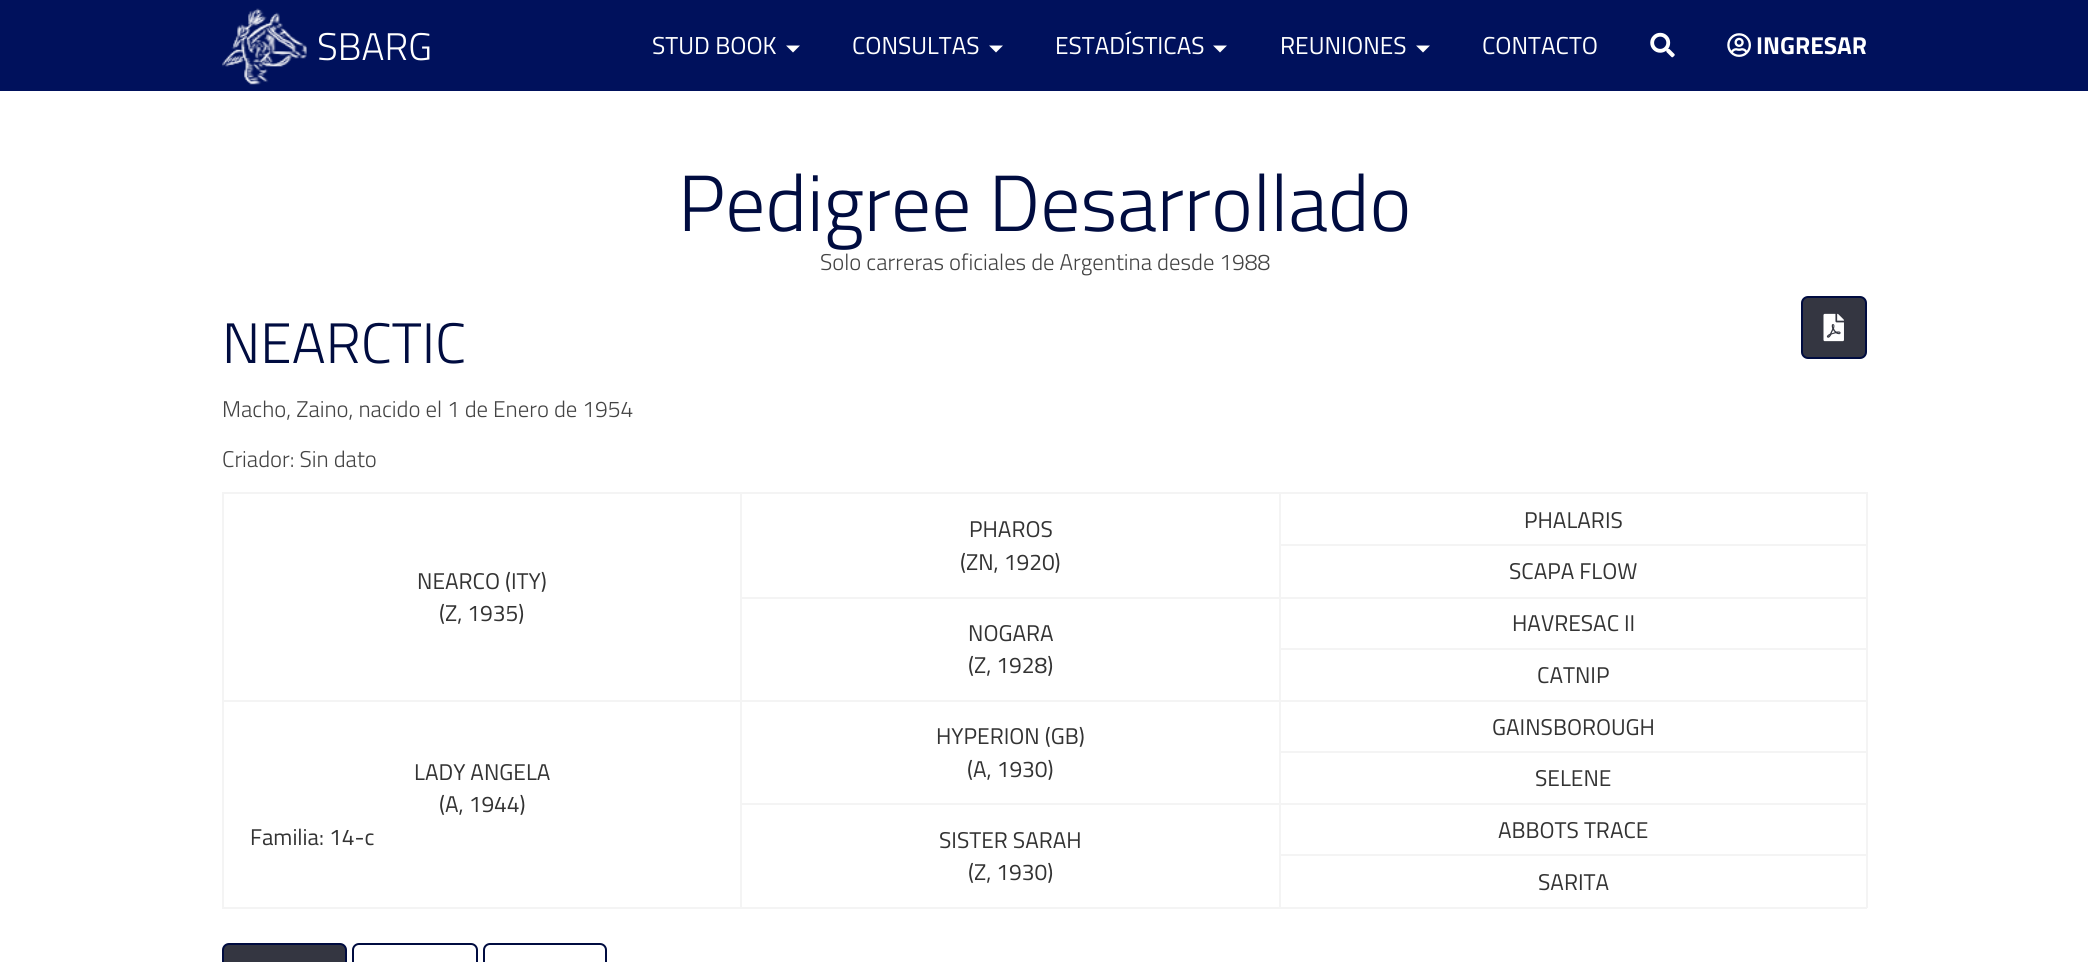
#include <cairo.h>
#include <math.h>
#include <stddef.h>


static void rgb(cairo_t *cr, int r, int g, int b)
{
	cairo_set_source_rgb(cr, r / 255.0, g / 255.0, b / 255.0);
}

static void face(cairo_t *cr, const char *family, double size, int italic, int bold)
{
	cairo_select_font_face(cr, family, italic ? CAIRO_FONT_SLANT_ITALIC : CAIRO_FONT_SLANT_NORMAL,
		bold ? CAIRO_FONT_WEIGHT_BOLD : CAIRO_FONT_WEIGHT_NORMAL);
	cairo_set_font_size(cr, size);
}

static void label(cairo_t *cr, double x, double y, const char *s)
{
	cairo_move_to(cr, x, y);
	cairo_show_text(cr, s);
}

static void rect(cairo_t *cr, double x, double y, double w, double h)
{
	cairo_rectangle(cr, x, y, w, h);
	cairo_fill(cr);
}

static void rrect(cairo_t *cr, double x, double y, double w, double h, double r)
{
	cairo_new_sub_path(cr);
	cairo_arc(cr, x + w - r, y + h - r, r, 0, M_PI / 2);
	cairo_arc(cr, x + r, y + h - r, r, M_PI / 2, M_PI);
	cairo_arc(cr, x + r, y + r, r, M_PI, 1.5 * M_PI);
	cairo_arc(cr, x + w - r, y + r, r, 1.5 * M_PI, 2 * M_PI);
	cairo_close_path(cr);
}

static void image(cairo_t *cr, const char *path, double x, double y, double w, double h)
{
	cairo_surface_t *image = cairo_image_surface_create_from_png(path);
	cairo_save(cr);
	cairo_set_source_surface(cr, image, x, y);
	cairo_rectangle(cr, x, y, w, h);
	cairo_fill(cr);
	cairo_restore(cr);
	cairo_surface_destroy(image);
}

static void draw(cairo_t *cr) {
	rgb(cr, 255, 255, 255);
	cairo_paint(cr);
	rgb(cr, 0, 17, 92);
	rect(cr, 0, 0, 2088, 91);
	image(cr, "image0.png", 222, 8, 85, 77);
	face(cr, "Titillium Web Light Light", 38.5, 0, 0);
	rgb(cr, 255, 255, 255);
	label(cr, 317, 60, "SBARG");
	face(cr, "Titillium Web", 24.5, 0, 0);
	label(cr, 652, 54, "STUD BOOK");
	cairo_new_path(cr);
	cairo_move_to(cr, 786, 45.5);
	cairo_line_to(cr, 800, 45.5);
	cairo_line_to(cr, 793, 52.5);
	cairo_close_path(cr);
	cairo_fill(cr);
	label(cr, 852, 54, "CONSULTAS");
	cairo_new_path(cr);
	cairo_move_to(cr, 989, 45.5);
	cairo_line_to(cr, 1003, 45.5);
	cairo_line_to(cr, 996, 52.5);
	cairo_close_path(cr);
	cairo_fill(cr);
	label(cr, 1055, 54, "ESTADÍSTICAS");
	cairo_new_path(cr);
	cairo_move_to(cr, 1213, 45.5);
	cairo_line_to(cr, 1227, 45.5);
	cairo_line_to(cr, 1220, 52.5);
	cairo_close_path(cr);
	cairo_fill(cr);
	label(cr, 1280, 54, "REUNIONES");
	cairo_new_path(cr);
	cairo_move_to(cr, 1416, 45.5);
	cairo_line_to(cr, 1430, 45.5);
	cairo_line_to(cr, 1423, 52.5);
	cairo_close_path(cr);
	cairo_fill(cr);
	label(cr, 1482, 54, "CONTACTO");
	image(cr, "image1.png", 1650, 32, 25, 26);
	image(cr, "image2.png", 1727, 33, 24, 24);
	face(cr, "Titillium Web", 24.5, 0, 1);
	label(cr, 1756, 54, "INGRESAR");
	face(cr, "Titillium Web Light Light", 79.6, 0, 0);
	rgb(cr, 0, 12, 64);
	label(cr, 678, 231, "Pedigree Desarrollado");
	face(cr, "Titillium Web Light Light", 22.75, 0, 0);
	rgb(cr, 68, 68, 68);
	label(cr, 820, 270, "Solo carreras oficiales de Argentina desde 1988");
	face(cr, "Titillium Web Light Light", 57, 0, 0);
	rgb(cr, 0, 12, 64);
	label(cr, 222, 363, "NEARCTIC");
	rgb(cr, 52, 54, 65);
	rrect(cr, 1802, 297, 64, 61, 6);
	cairo_fill_preserve(cr);
	rgb(cr, 0, 12, 64);
	cairo_stroke(cr);
	image(cr, "image3.png", 1823, 313, 21, 29);
	face(cr, "Titillium Web Light Light", 22.75, 0, 0);
	rgb(cr, 68, 68, 68);
	label(cr, 222, 417, "Macho, Zaino, nacido el 1 de Enero de 1954");
	label(cr, 222, 467, "Criador: Sin dato");
	rgb(cr, 244, 244, 244);
	rect(cr, 222, 492, 1645, 2);
	rect(cr, 1866, 492, 2, 416);
	rect(cr, 222, 907, 1645, 2);
	rect(cr, 222, 492, 2, 416);
	face(cr, "Titillium Web", 22.75, 0, 0);
	rgb(cr, 51, 51, 51);
	label(cr, 969, 537, "PHAROS");
	label(cr, 960, 570, "(ZN, 1920)");
	label(cr, 1524, 528, "PHALARIS");
	label(cr, 417, 589, "NEARCO (ITY)");
	label(cr, 439, 621, "(Z, 1935)");
	rgb(cr, 244, 244, 244);
	rect(cr, 1279, 544, 588, 2);
	rect(cr, 1279, 597, 588, 2);
	rect(cr, 1279, 648, 588, 2);
	rect(cr, 1279, 700, 588, 2);
	rect(cr, 1279, 751, 588, 2);
	rect(cr, 1279, 803, 588, 2);
	rect(cr, 1279, 854, 588, 2);
	rect(cr, 1279, 854, 2, 54);
	rect(cr, 1279, 803, 2, 53);
	rect(cr, 740, 803, 541, 2);
	rect(cr, 1279, 751, 2, 54);
	rect(cr, 1279, 700, 2, 53);
	rect(cr, 740, 700, 541, 2);
	rect(cr, 1279, 648, 2, 54);
	rect(cr, 1279, 597, 2, 52);
	rect(cr, 740, 597, 541, 2);
	rect(cr, 1279, 492, 2, 107);
	rgb(cr, 51, 51, 51);
	label(cr, 1509, 579, "SCAPA FLOW");
	rgb(cr, 244, 244, 244);
	rect(cr, 740, 803, 2, 105);
	rect(cr, 740, 700, 2, 105);
	rect(cr, 222, 700, 520, 2);
	rect(cr, 740, 492, 2, 210);
	rgb(cr, 51, 51, 51);
	label(cr, 968, 641, "NOGARA");
	label(cr, 968, 673, "(Z, 1928)");
	label(cr, 1512, 631, "HAVRESAC II");
	label(cr, 1537, 683, "CATNIP");
	label(cr, 936, 744, "HYPERION (GB)");
	label(cr, 967, 777, "(A, 1930)");
	label(cr, 1492, 735, "GAINSBOROUGH");
	label(cr, 414, 780, "LADY ANGELA");
	label(cr, 439, 812, "(A, 1944)");
	label(cr, 250, 845, "Familia: 14-c");
	label(cr, 1535, 786, "SELENE");
	label(cr, 939, 848, "SISTER SARAH");
	label(cr, 968, 880, "(Z, 1930)");
	label(cr, 1498, 838, "ABBOTS TRACE");
	label(cr, 1538, 890, "SARITA");
	rgb(cr, 52, 54, 65);
	rrect(cr, 223, 944, 123, 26, 6);
	cairo_fill_preserve(cr);
	rgb(cr, 0, 12, 64);
	cairo_stroke(cr);
	rrect(cr, 353, 944, 124, 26, 6);
	cairo_stroke(cr);
	rrect(cr, 484, 944, 122, 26, 6);
	cairo_stroke(cr);
}

int main(void) {
	cairo_surface_t *surface = cairo_image_surface_create(CAIRO_FORMAT_RGB24, 2088, 962);
	cairo_t *cr = cairo_create(surface);
	cairo_font_options_t *options = cairo_font_options_create();
	cairo_font_options_set_hint_metrics(options, CAIRO_HINT_METRICS_OFF);
	cairo_font_options_set_hint_style(options, CAIRO_HINT_STYLE_NONE);
	cairo_set_font_options(cr, options);
	cairo_set_miter_limit(cr, 4);
	draw(cr);
	cairo_surface_write_to_png(surface, "render.png");
	cairo_font_options_destroy(options);
	cairo_destroy(cr);
	cairo_surface_destroy(surface);
	return 0;
}
